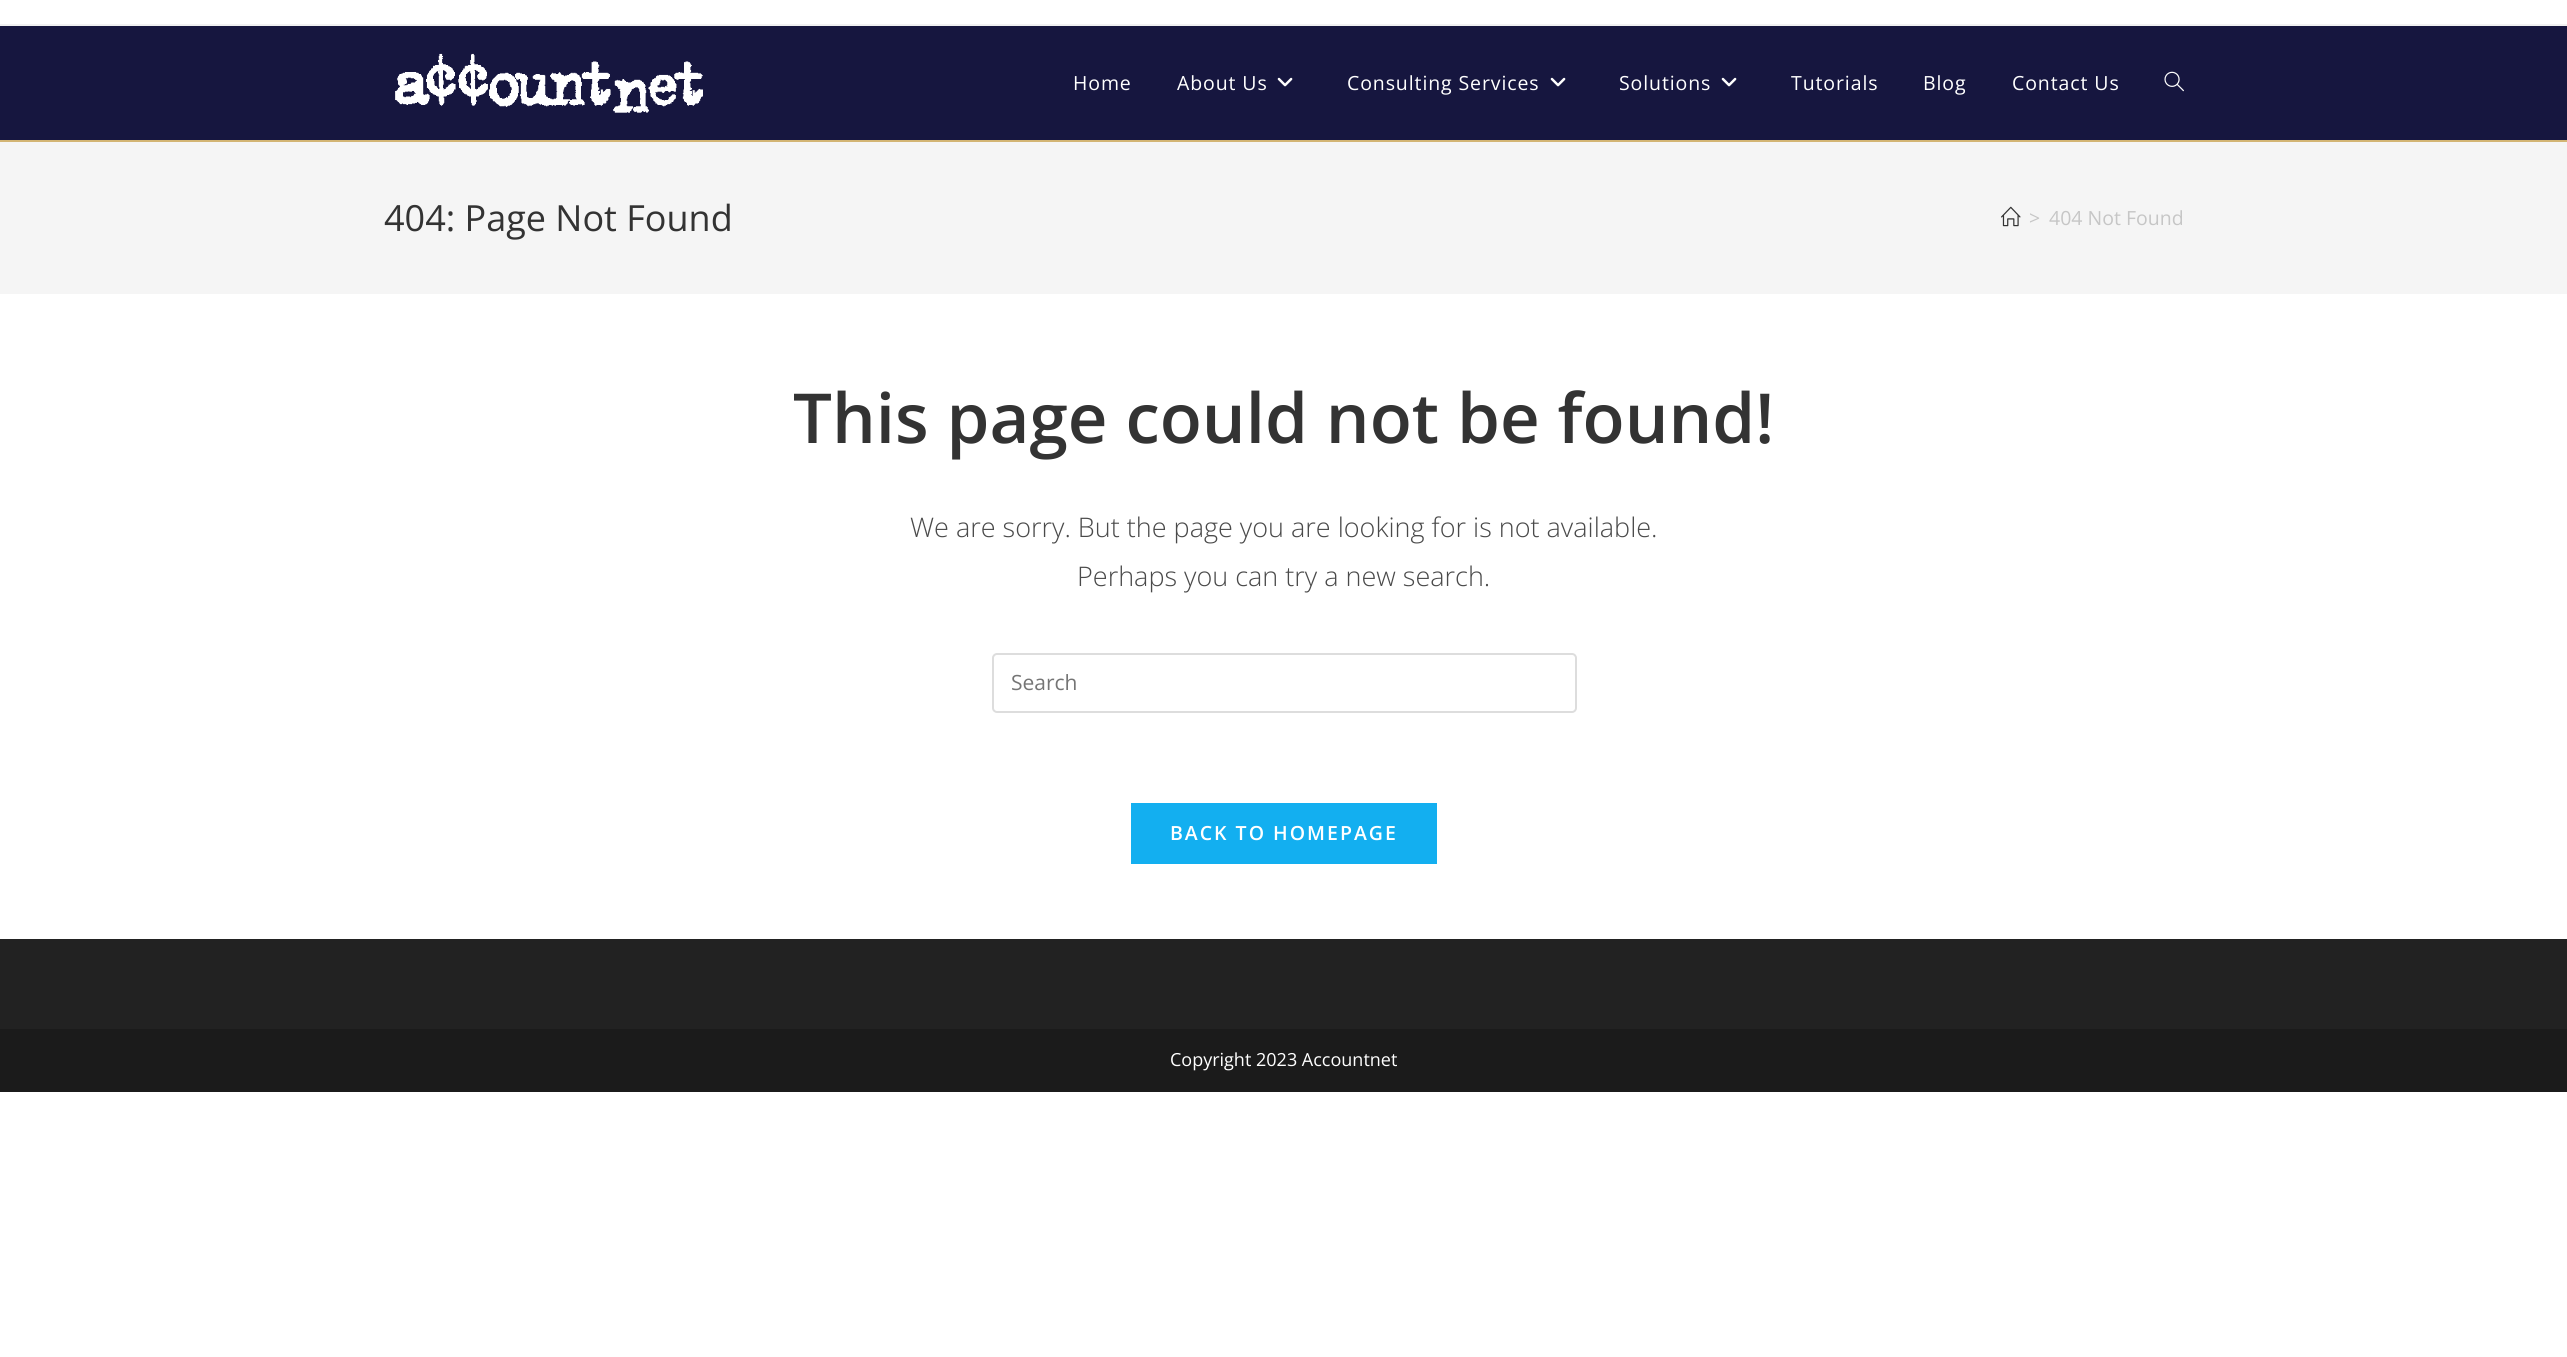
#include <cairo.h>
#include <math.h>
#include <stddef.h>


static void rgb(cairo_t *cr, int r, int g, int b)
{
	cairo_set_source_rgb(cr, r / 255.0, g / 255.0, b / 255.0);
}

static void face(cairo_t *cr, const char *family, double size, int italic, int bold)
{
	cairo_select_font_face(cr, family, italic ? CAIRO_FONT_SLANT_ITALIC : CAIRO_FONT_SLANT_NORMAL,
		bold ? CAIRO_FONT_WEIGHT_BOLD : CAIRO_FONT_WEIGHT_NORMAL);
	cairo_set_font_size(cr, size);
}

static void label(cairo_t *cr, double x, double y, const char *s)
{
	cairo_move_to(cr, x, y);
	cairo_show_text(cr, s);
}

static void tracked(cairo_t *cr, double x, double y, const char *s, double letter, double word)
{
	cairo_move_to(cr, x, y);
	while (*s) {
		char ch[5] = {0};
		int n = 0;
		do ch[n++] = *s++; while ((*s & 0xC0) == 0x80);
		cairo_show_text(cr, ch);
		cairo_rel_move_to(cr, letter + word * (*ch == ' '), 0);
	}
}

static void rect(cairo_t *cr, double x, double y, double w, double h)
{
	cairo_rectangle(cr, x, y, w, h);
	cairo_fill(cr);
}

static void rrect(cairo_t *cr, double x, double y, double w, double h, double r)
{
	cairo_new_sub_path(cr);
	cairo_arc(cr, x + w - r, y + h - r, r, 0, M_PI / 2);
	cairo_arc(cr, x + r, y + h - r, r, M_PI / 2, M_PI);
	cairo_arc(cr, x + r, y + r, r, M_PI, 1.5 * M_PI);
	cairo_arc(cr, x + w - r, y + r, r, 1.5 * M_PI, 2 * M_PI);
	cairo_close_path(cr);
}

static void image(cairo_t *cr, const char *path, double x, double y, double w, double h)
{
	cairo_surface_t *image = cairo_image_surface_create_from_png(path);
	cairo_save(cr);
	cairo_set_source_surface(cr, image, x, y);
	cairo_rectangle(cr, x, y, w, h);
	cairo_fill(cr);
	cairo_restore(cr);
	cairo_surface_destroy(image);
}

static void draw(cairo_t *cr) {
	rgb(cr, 255, 255, 255);
	cairo_paint(cr);
	rgb(cr, 241, 241, 241);
	rect(cr, 0, 24, 2567, 2);
	rgb(cr, 22, 22, 63);
	rect(cr, 0, 26, 2567, 114);
	rgb(cr, 211, 181, 116);
	rect(cr, 0, 140, 2567, 2);
	image(cr, "image0.png", 395, 53, 308, 60);
	face(cr, "Open Sans", 19.5, 0, 0);
	rgb(cr, 255, 255, 255);
	tracked(cr, 1073, 90, "Home", 0.9, 0);
	tracked(cr, 1177, 90, "About Us", 0.9, 0);
	image(cr, "image1.png", 1277, 77, 16, 10);
	tracked(cr, 1347, 90, "Consulting Services", 0.9, 0);
	image(cr, "image1.png", 1550, 77, 16, 10);
	tracked(cr, 1619, 90, "Solutions", 0.9, 0);
	image(cr, "image1.png", 1721, 77, 16, 10);
	tracked(cr, 1791, 90, "Tutorials", 0.9, 0);
	tracked(cr, 1923, 90, "Blog", 0.9, 0);
	tracked(cr, 2012, 90, "Contact Us", 0.9, 0);
	image(cr, "image2.png", 2164, 71, 20, 21);
	rgb(cr, 245, 245, 245);
	rect(cr, 0, 142, 2567, 152);
	face(cr, "Open Sans", 36, 0, 0);
	rgb(cr, 51, 51, 51);
	label(cr, 384, 231, "404: Page Not Found");
	image(cr, "image3.png", 2001, 206, 20, 21);
	face(cr, "Open Sans", 19.5, 0, 0);
	rgb(cr, 198, 198, 198);
	label(cr, 2029, 225, ">");
	label(cr, 2049, 225, "404 Not Found");
	face(cr, "Open Sans SemiBold", 69, 0, 0);
	rgb(cr, 51, 51, 51);
	label(cr, 793, 443, "This page could not be found!");
	face(cr, "Open Sans Light", 27, 0, 0);
	rgb(cr, 74, 74, 74);
	label(cr, 910, 537, "We are sorry. But the page you are looking for is not available.");
	label(cr, 1077, 586, "Perhaps you can try a new search.");
	rrect(cr, 993, 654, 583, 58, 4);
	rgb(cr, 221, 221, 221);
	cairo_stroke(cr);
	face(cr, "Open Sans", 21, 0, 0);
	rgb(cr, 117, 117, 117);
	label(cr, 1011, 690, "Search");
	rgb(cr, 19, 175, 240);
	rect(cr, 1131, 803, 306, 61);
	face(cr, "Open Sans SemiBold", 19.5, 0, 0);
	rgb(cr, 255, 255, 255);
	tracked(cr, 1170, 840, "BACK TO HOMEPAGE", 2, 0);
	rgb(cr, 34, 34, 34);
	rect(cr, 0, 939, 2567, 90);
	rgb(cr, 27, 27, 27);
	rect(cr, 0, 1029, 2567, 63);
	face(cr, "Open Sans", 18, 0, 0);
	rgb(cr, 255, 255, 255);
	label(cr, 1170, 1066, "Copyright 2023 Accountnet");
}

int main(void) {
	cairo_surface_t *surface = cairo_image_surface_create(CAIRO_FORMAT_RGB24, 2567, 1357);
	cairo_t *cr = cairo_create(surface);
	cairo_font_options_t *options = cairo_font_options_create();
	cairo_font_options_set_hint_metrics(options, CAIRO_HINT_METRICS_OFF);
	cairo_font_options_set_hint_style(options, CAIRO_HINT_STYLE_NONE);
	cairo_set_font_options(cr, options);
	cairo_set_miter_limit(cr, 4);
	draw(cr);
	cairo_surface_write_to_png(surface, "render.png");
	cairo_font_options_destroy(options);
	cairo_destroy(cr);
	cairo_surface_destroy(surface);
	return 0;
}
